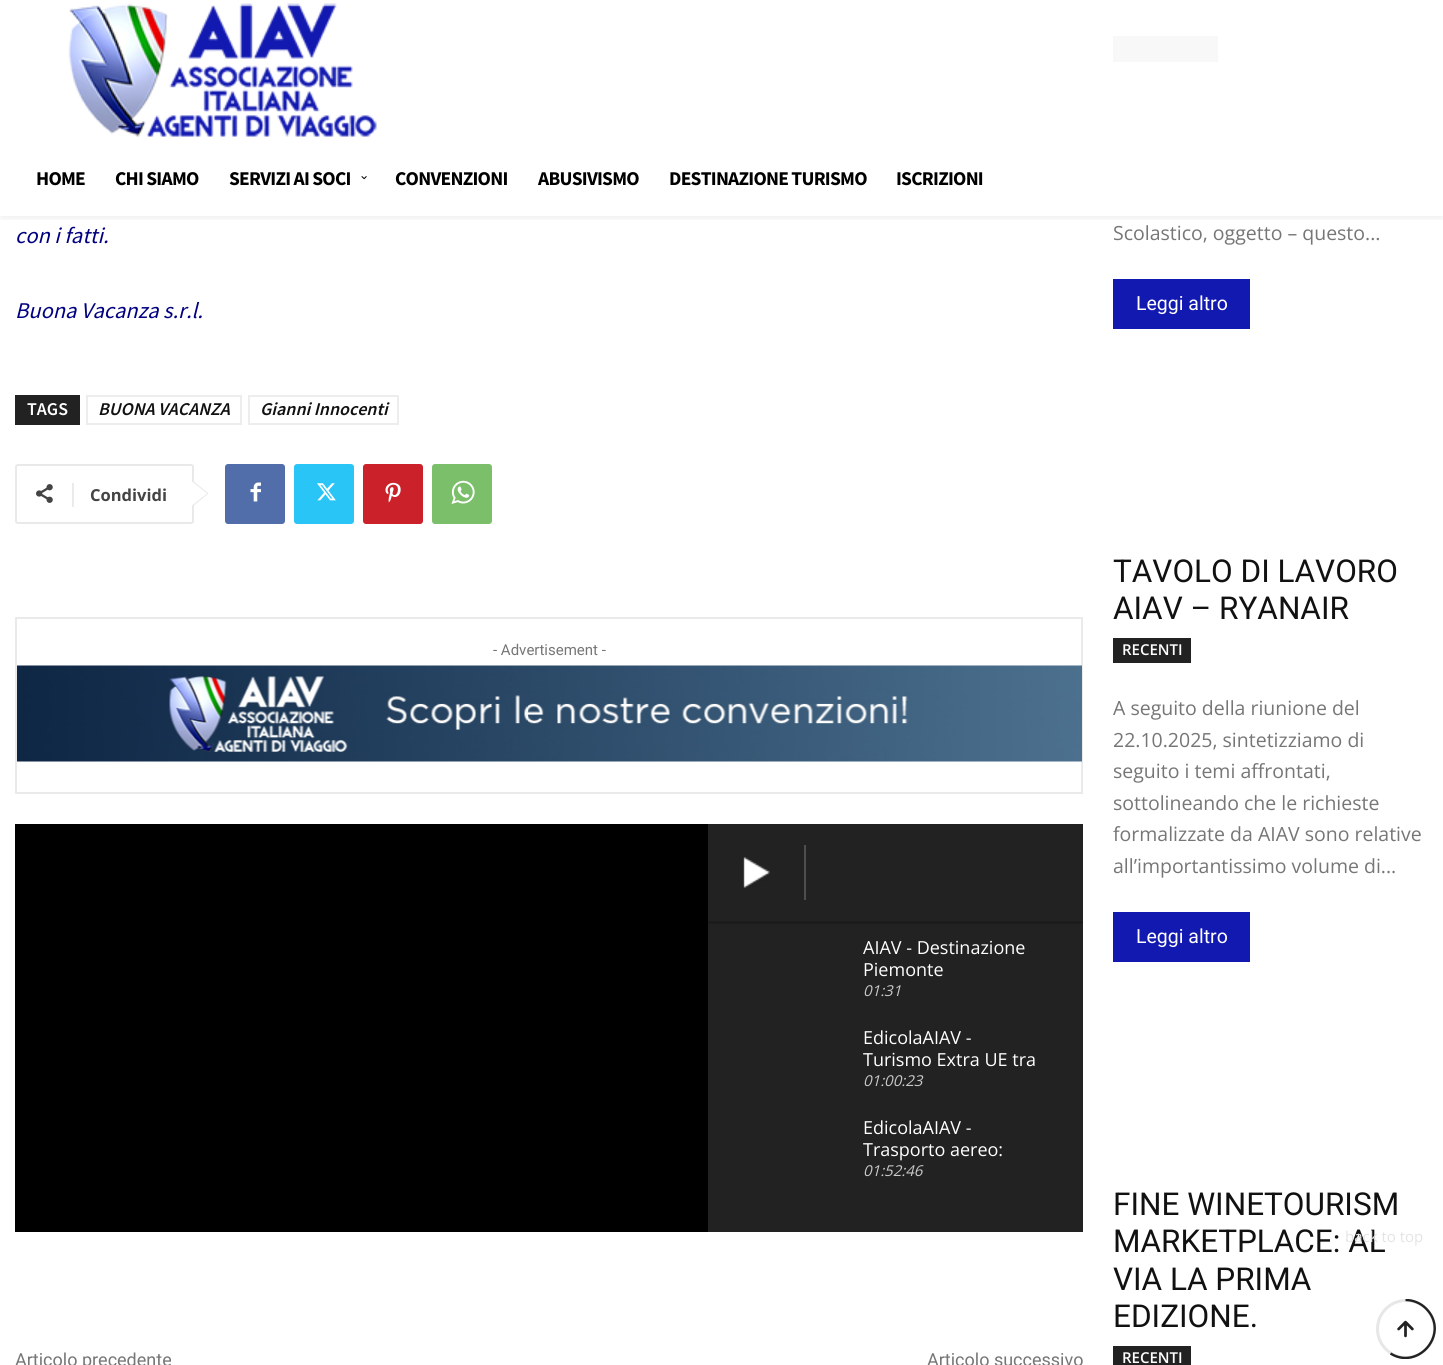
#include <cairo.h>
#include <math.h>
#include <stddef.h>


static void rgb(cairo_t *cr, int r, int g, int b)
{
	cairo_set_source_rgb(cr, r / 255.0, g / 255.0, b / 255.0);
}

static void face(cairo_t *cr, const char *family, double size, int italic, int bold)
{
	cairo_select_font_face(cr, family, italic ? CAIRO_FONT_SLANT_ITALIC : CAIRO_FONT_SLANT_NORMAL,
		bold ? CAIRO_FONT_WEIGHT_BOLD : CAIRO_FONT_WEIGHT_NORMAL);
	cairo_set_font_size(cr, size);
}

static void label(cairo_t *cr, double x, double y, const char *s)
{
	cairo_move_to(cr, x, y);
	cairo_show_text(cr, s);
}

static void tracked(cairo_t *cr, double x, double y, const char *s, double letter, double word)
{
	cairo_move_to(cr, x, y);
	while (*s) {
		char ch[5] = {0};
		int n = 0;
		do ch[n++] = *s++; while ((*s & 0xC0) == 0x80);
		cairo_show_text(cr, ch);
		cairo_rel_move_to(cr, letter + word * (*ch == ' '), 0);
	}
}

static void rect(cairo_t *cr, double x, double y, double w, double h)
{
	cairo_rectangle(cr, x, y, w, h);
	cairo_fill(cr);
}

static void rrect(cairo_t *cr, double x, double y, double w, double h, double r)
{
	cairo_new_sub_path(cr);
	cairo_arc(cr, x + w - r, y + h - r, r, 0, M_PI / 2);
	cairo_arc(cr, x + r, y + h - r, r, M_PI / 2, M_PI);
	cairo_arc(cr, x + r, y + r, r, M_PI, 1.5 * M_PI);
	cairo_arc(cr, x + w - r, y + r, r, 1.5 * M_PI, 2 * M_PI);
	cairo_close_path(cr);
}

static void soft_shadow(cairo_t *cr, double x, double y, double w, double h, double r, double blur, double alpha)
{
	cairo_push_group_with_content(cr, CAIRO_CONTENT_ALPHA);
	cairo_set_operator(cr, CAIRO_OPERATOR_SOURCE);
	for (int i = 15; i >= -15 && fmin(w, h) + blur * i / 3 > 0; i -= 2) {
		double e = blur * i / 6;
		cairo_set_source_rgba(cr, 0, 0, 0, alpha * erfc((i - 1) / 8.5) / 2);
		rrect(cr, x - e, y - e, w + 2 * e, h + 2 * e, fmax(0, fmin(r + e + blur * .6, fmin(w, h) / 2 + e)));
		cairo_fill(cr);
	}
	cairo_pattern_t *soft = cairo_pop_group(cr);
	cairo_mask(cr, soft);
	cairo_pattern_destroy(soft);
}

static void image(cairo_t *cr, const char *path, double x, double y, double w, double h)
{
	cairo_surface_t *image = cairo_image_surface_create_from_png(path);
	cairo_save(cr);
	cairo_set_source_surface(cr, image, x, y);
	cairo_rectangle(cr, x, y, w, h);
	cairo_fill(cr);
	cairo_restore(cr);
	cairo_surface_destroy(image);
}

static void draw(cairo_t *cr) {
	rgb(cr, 255, 255, 255);
	cairo_paint(cr);
	image(cr, "image0.png", 68, 3, 309, 134);
	rgb(cr, 248, 248, 248);
	rect(cr, 1113, 36, 105, 26);
	cairo_save(cr);
	cairo_rectangle(cr, 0, 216, 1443, 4);
	cairo_clip(cr);
	rgb(cr, 0, 0, 0);
	soft_shadow(cr, 0, 3, 1443, 216, 0, 3, 0.06);
	cairo_restore(cr);
	face(cr, "Source Sans Pro", 19.5, 0, 1);
	rgb(cr, 0, 0, 0);
	tracked(cr, 36, 185, "HOME", -0.75, 0);
	tracked(cr, 115, 185, "CHI SIAMO", -0.75, 0);
	tracked(cr, 229, 185, "SERVIZI AI SOCI", -0.75, 0);
	image(cr, "image1.png", 361, 176, 6, 4);
	tracked(cr, 395, 185, "CONVENZIONI", -0.75, 0);
	tracked(cr, 538, 185, "ABUSIVISMO", -0.75, 0);
	tracked(cr, 669, 185, "DESTINAZIONE TURISMO", -0.75, 0);
	tracked(cr, 896, 185, "ISCRIZIONI", -0.75, 0);
	face(cr, "Source Sans Pro", 22.5, 1, 0);
	rgb(cr, 0, 0, 128);
	label(cr, 15, 243, "con i fatti.");
	label(cr, 15, 318, "Buona Vacanza s.r.l.");
	rgb(cr, 34, 34, 34);
	rect(cr, 15, 395, 65, 30);
	face(cr, "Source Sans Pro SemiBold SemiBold", 18, 0, 0);
	rgb(cr, 255, 255, 255);
	label(cr, 27, 415, "TAGS");
	cairo_rectangle(cr, 87, 396, 154, 28);
	rgb(cr, 237, 237, 237);
	cairo_stroke(cr);
	face(cr, "Source Sans Pro SemiBold SemiBold", 18, 1, 0);
	rgb(cr, 17, 17, 17);
	label(cr, 98, 415, "BUONA VACANZA");
	cairo_rectangle(cr, 249, 396, 149, 28);
	rgb(cr, 237, 237, 237);
	cairo_stroke(cr);
	rgb(cr, 17, 17, 17);
	label(cr, 260, 415, "Gianni Innocenti");
	rrect(cr, 16, 465, 177, 58, 2);
	rgb(cr, 233, 233, 233);
	cairo_stroke(cr);
	cairo_new_path(cr);
	cairo_move_to(cr, 192, 507);
	cairo_line_to(cr, 192, 480);
	cairo_line_to(cr, 208.5, 493.5);
	cairo_close_path(cr);
	cairo_fill(cr);
	image(cr, "image2.png", 36, 484, 17, 19);
	rgb(cr, 235, 235, 235);
	rect(cr, 72, 483, 2, 24);
	face(cr, "Open Sans", 16.5, 0, 1);
	rgb(cr, 68, 68, 68);
	label(cr, 90, 501, "Condividi");
	rgb(cr, 255, 255, 255);
	cairo_new_path(cr);
	cairo_move_to(cr, 192, 505.5);
	cairo_line_to(cr, 192, 481.5);
	cairo_line_to(cr, 207, 493.5);
	cairo_close_path(cr);
	cairo_fill(cr);
	rgb(cr, 81, 110, 171);
	rrect(cr, 225, 464, 60, 60, 3);
	cairo_fill(cr);
	image(cr, "image3.png", 250, 482, 11, 20);
	rgb(cr, 41, 197, 246);
	rrect(cr, 294, 464, 60, 60, 3);
	cairo_fill(cr);
	image(cr, "image4.png", 317, 483, 19, 18);
	rgb(cr, 202, 33, 42);
	rrect(cr, 363, 464, 60, 60, 3);
	cairo_fill(cr);
	image(cr, "image5.png", 385, 482, 16, 21);
	rgb(cr, 123, 191, 106);
	rrect(cr, 432, 464, 60, 60, 3);
	cairo_fill(cr);
	image(cr, "image6.png", 451, 480, 24, 24);
	cairo_rectangle(cr, 16, 618, 1066, 175);
	rgb(cr, 234, 234, 234);
	cairo_stroke(cr);
	face(cr, "Roboto", 15, 0, 0);
	rgb(cr, 118, 118, 118);
	label(cr, 493, 655, "- Advertisement -");
	image(cr, "image7.png", 17, 665, 1065, 97);
	rgb(cr, 0, 0, 0);
	rect(cr, 15, 824, 693, 408);
	rgb(cr, 34, 34, 34);
	rect(cr, 708, 824, 375, 408);
	image(cr, "image8.png", 743, 857, 27, 31);
	rgb(cr, 78, 78, 78);
	rect(cr, 804, 845, 2, 55);
	rgb(cr, 28, 28, 28);
	rect(cr, 708, 921, 375, 3);
	face(cr, "Open Sans", 18, 0, 0);
	rgb(cr, 255, 255, 255);
	label(cr, 863, 954, "AIAV - Destinazione");
	label(cr, 863, 976, "Piemonte");
	face(cr, "Open Sans", 15, 1, 0);
	rgb(cr, 202, 202, 202);
	label(cr, 863, 996, "01:31");
	face(cr, "Open Sans", 18, 0, 0);
	rgb(cr, 255, 255, 255);
	label(cr, 863, 1044, "EdicolaAIAV -");
	label(cr, 863, 1066, "Turismo Extra UE tra");
	face(cr, "Open Sans", 15, 1, 0);
	rgb(cr, 202, 202, 202);
	label(cr, 863, 1086, "01:00:23");
	face(cr, "Open Sans", 18, 0, 0);
	rgb(cr, 255, 255, 255);
	label(cr, 863, 1134, "EdicolaAIAV -");
	label(cr, 863, 1156, "Trasporto aereo:");
	face(cr, "Open Sans", 15, 1, 0);
	rgb(cr, 202, 202, 202);
	label(cr, 863, 1176, "01:52:46");
	face(cr, "Roboto", 18, 0, 0);
	rgb(cr, 118, 118, 118);
	label(cr, 15, 1366, "Articolo precedente");
	label(cr, 927, 1366, "Articolo successivo");
	face(cr, "Open Sans", 19.5, 0, 0);
	label(cr, 1113, 240, "Scolastico, oggetto – questo...");
	rgb(cr, 18, 25, 177);
	rect(cr, 1113, 279, 137, 50);
	face(cr, "Roboto", 19.5, 0, 0);
	rgb(cr, 255, 255, 255);
	label(cr, 1136, 310, "Leggi altro");
	face(cr, "Roboto", 31.5, 0, 0);
	rgb(cr, 17, 17, 17);
	label(cr, 1113, 582, "TAVOLO DI LAVORO");
	label(cr, 1113, 619, "AIAV – RYANAIR");
	rgb(cr, 34, 34, 34);
	rect(cr, 1113, 638, 78, 25);
	face(cr, "Open Sans SemiBold", 15, 0, 0);
	rgb(cr, 255, 255, 255);
	label(cr, 1122, 655, "RECENTI");
	face(cr, "Open Sans", 19.5, 0, 0);
	rgb(cr, 118, 118, 118);
	label(cr, 1113, 715, "A seguito della riunione del");
	label(cr, 1113, 747, "22.10.2025, sintetizziamo di");
	label(cr, 1113, 778, "seguito i temi affrontati,");
	label(cr, 1113, 810, "sottolineando che le richieste");
	label(cr, 1113, 841, "formalizzate da AIAV sono relative");
	label(cr, 1113, 873, "all’importantissimo volume di...");
	rgb(cr, 18, 25, 177);
	rect(cr, 1113, 912, 137, 50);
	face(cr, "Roboto", 19.5, 0, 0);
	rgb(cr, 255, 255, 255);
	label(cr, 1136, 943, "Leggi altro");
	face(cr, "Roboto", 31.5, 0, 0);
	rgb(cr, 17, 17, 17);
	label(cr, 1113, 1215, "FINE WINETOURISM");
	label(cr, 1113, 1252, "MARKETPLACE: AL");
	label(cr, 1113, 1290, "VIA LA PRIMA");
	label(cr, 1113, 1327, "EDIZIONE.");
	rgb(cr, 34, 34, 34);
	rect(cr, 1113, 1346, 78, 19);
	face(cr, "Open Sans SemiBold", 15, 0, 0);
	rgb(cr, 255, 255, 255);
	label(cr, 1122, 1363, "RECENTI");
	cairo_new_path(cr);
	cairo_arc(cr, 1406, 1329, 28.5, 0, 2 * M_PI);
	rgb(cr, 231, 231, 231);
	cairo_set_line_width(cr, 3);
	cairo_stroke(cr);
	face(cr, "Open Sans", 15, 0, 0);
	rgb(cr, 228, 228, 228);
	label(cr, 1345, 1242, "back to top");
	cairo_save(cr);
	cairo_rectangle(cr, 1376, 1299, 60, 60);
	cairo_clip(cr);
	cairo_new_path(cr);
	cairo_move_to(cr, 1405.5, 1300);
	cairo_curve_to(cr, 1413, 1300, 1420.5, 1303, 1426, 1308.5);
	cairo_curve_to(cr, 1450.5, 1333, 1418.5, 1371, 1390.5, 1353.5);
	rgb(cr, 34, 34, 34);
	cairo_set_line_width(cr, 2.4);
	cairo_stroke(cr);
	cairo_restore(cr);
	image(cr, "image9.png", 1397, 1320, 17, 18);
}

int main(void) {
	cairo_surface_t *surface = cairo_image_surface_create(CAIRO_FORMAT_RGB24, 1443, 1365);
	cairo_t *cr = cairo_create(surface);
	cairo_font_options_t *options = cairo_font_options_create();
	cairo_font_options_set_hint_metrics(options, CAIRO_HINT_METRICS_OFF);
	cairo_font_options_set_hint_style(options, CAIRO_HINT_STYLE_NONE);
	cairo_set_font_options(cr, options);
	cairo_set_miter_limit(cr, 4);
	draw(cr);
	cairo_surface_write_to_png(surface, "render.png");
	cairo_font_options_destroy(options);
	cairo_destroy(cr);
	cairo_surface_destroy(surface);
	return 0;
}
